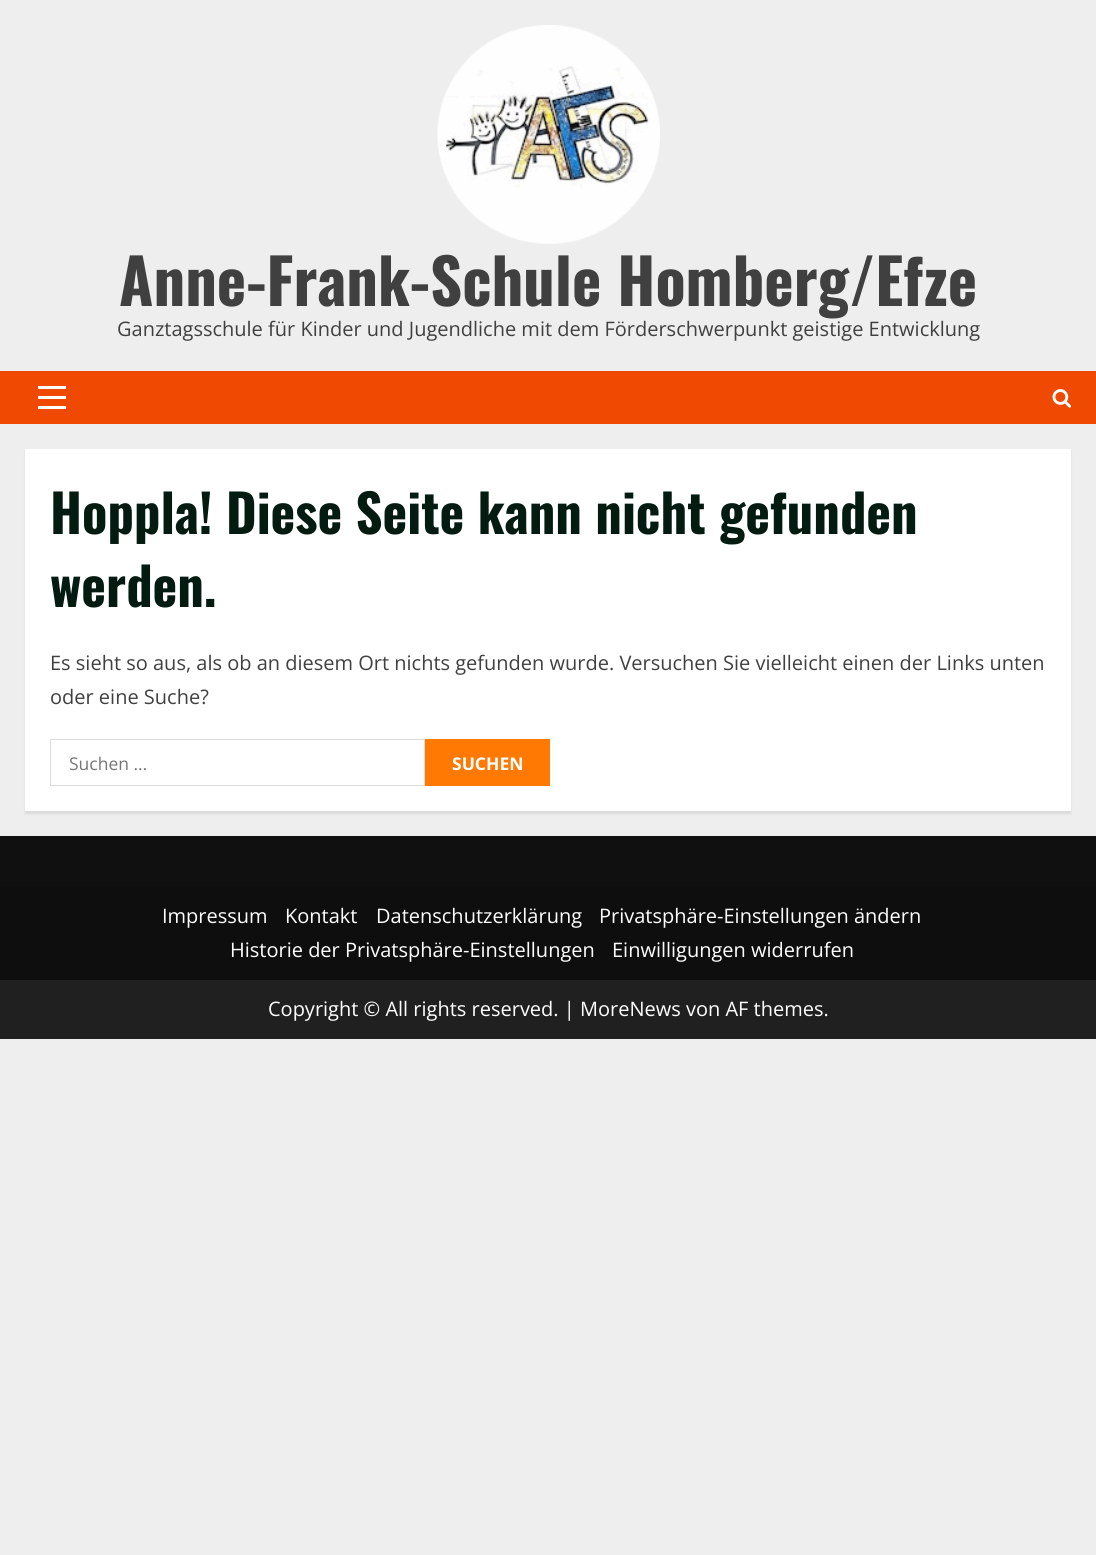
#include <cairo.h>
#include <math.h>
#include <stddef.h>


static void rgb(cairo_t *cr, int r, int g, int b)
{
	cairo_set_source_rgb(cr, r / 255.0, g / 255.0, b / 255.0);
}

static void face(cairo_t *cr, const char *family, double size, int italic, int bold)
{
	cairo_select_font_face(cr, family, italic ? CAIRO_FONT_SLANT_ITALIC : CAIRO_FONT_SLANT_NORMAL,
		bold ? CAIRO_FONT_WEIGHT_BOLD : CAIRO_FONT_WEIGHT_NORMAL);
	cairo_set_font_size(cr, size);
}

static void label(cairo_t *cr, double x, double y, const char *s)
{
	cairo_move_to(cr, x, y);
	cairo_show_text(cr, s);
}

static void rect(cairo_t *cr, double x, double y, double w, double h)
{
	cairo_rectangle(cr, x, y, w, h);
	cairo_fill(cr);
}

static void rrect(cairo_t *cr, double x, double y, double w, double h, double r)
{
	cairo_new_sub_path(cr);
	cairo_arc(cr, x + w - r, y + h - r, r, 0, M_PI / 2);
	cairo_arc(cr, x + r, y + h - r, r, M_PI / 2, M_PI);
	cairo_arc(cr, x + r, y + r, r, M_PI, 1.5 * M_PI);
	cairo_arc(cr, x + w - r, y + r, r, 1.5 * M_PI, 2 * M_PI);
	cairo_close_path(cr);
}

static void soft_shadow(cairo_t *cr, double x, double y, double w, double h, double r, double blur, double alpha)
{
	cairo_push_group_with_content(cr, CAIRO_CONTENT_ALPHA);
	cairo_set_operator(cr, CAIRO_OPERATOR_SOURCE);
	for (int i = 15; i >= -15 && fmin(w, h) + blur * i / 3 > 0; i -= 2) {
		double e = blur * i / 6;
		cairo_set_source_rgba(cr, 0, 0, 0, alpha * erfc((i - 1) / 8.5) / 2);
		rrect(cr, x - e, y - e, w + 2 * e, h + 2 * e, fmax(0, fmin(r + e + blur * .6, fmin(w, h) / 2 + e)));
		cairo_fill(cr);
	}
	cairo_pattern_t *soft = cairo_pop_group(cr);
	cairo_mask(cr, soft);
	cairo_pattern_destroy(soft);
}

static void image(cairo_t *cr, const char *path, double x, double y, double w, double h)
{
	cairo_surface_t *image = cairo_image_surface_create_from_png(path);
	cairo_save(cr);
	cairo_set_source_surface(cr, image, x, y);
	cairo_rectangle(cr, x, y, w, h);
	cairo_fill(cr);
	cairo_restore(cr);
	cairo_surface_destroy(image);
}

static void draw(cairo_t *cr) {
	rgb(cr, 238, 238, 238);
	cairo_paint(cr);
	image(cr, "image0.png", 437, 25, 223, 219);
	face(cr, "Oswald", 62.5, 0, 1);
	rgb(cr, 64, 64, 64);
	label(cr, 119, 306, "Anne-Frank-Schule Homberg/Efze");
	face(cr, "Open Sans", 20, 0, 0);
	label(cr, 117, 336, "Ganztagsschule für Kinder und Jugendliche mit dem Förderschwerpunkt geistige Entwicklung");
	rgb(cr, 240, 73, 1);
	rect(cr, 0, 371, 1096, 53);
	rgb(cr, 255, 255, 255);
	rect(cr, 38, 396, 28, 3);
	rect(cr, 38, 386, 28, 3);
	rect(cr, 38, 406, 28, 3);
	image(cr, "image1.png", 1052, 389, 20, 19);
	rgb(cr, 0, 0, 0);
	soft_shadow(cr, 25, 451, 1046, 363, 0, 1, 0.08);
	rgb(cr, 255, 255, 255);
	rect(cr, 25, 449, 1046, 362);
	face(cr, "Oswald", 52.5, 0, 1);
	rgb(cr, 3, 27, 17);
	label(cr, 50, 534, "Hoppla! Diese Seite kann nicht gefunden");
	label(cr, 50, 607, "werden.");
	face(cr, "Open Sans", 20, 0, 0);
	rgb(cr, 64, 64, 64);
	label(cr, 50, 670, "Es sieht so aus, als ob an diesem Ort nichts gefunden wurde. Versuchen Sie vielleicht einen der Links unten");
	label(cr, 50, 704, "oder eine Suche?");
	cairo_rectangle(cr, 50.5, 739.5, 374, 46);
	rgb(cr, 220, 220, 220);
	cairo_set_line_width(cr, 1);
	cairo_stroke(cr);
	face(cr, "Open Sans", 17.5, 0, 0);
	rgb(cr, 117, 117, 117);
	label(cr, 69, 770, "Suchen …");
	rgb(cr, 255, 121, 3);
	rect(cr, 425, 739, 125, 47);
	face(cr, "Open Sans", 17.5, 0, 1);
	rgb(cr, 255, 255, 255);
	label(cr, 452, 770, "SUCHEN");
	rgb(cr, 16, 16, 16);
	rect(cr, 0, 836, 1096, 50);
	rgb(cr, 14, 14, 14);
	rect(cr, 0, 886, 1096, 94);
	face(cr, "Open Sans", 20, 0, 0);
	rgb(cr, 255, 255, 255);
	label(cr, 162, 923, "Impressum");
	label(cr, 285, 923, "Kontakt");
	label(cr, 376, 923, "Datenschutzerklärung");
	label(cr, 599, 923, "Privatsphäre-Einstellungen ändern");
	label(cr, 230, 957, "Historie der Privatsphäre-Einstellungen");
	label(cr, 612, 957, "Einwilligungen widerrufen");
	rgb(cr, 32, 32, 32);
	rect(cr, 0, 980, 1096, 59);
	rgb(cr, 255, 255, 255);
	label(cr, 268, 1016, "Copyright © All rights reserved. | MoreNews von AF themes.");
}

int main(void) {
	cairo_surface_t *surface = cairo_image_surface_create(CAIRO_FORMAT_RGB24, 1096, 1555);
	cairo_t *cr = cairo_create(surface);
	cairo_font_options_t *options = cairo_font_options_create();
	cairo_font_options_set_hint_metrics(options, CAIRO_HINT_METRICS_OFF);
	cairo_font_options_set_hint_style(options, CAIRO_HINT_STYLE_NONE);
	cairo_set_font_options(cr, options);
	cairo_set_miter_limit(cr, 4);
	draw(cr);
	cairo_surface_write_to_png(surface, "render.png");
	cairo_font_options_destroy(options);
	cairo_destroy(cr);
	cairo_surface_destroy(surface);
	return 0;
}
